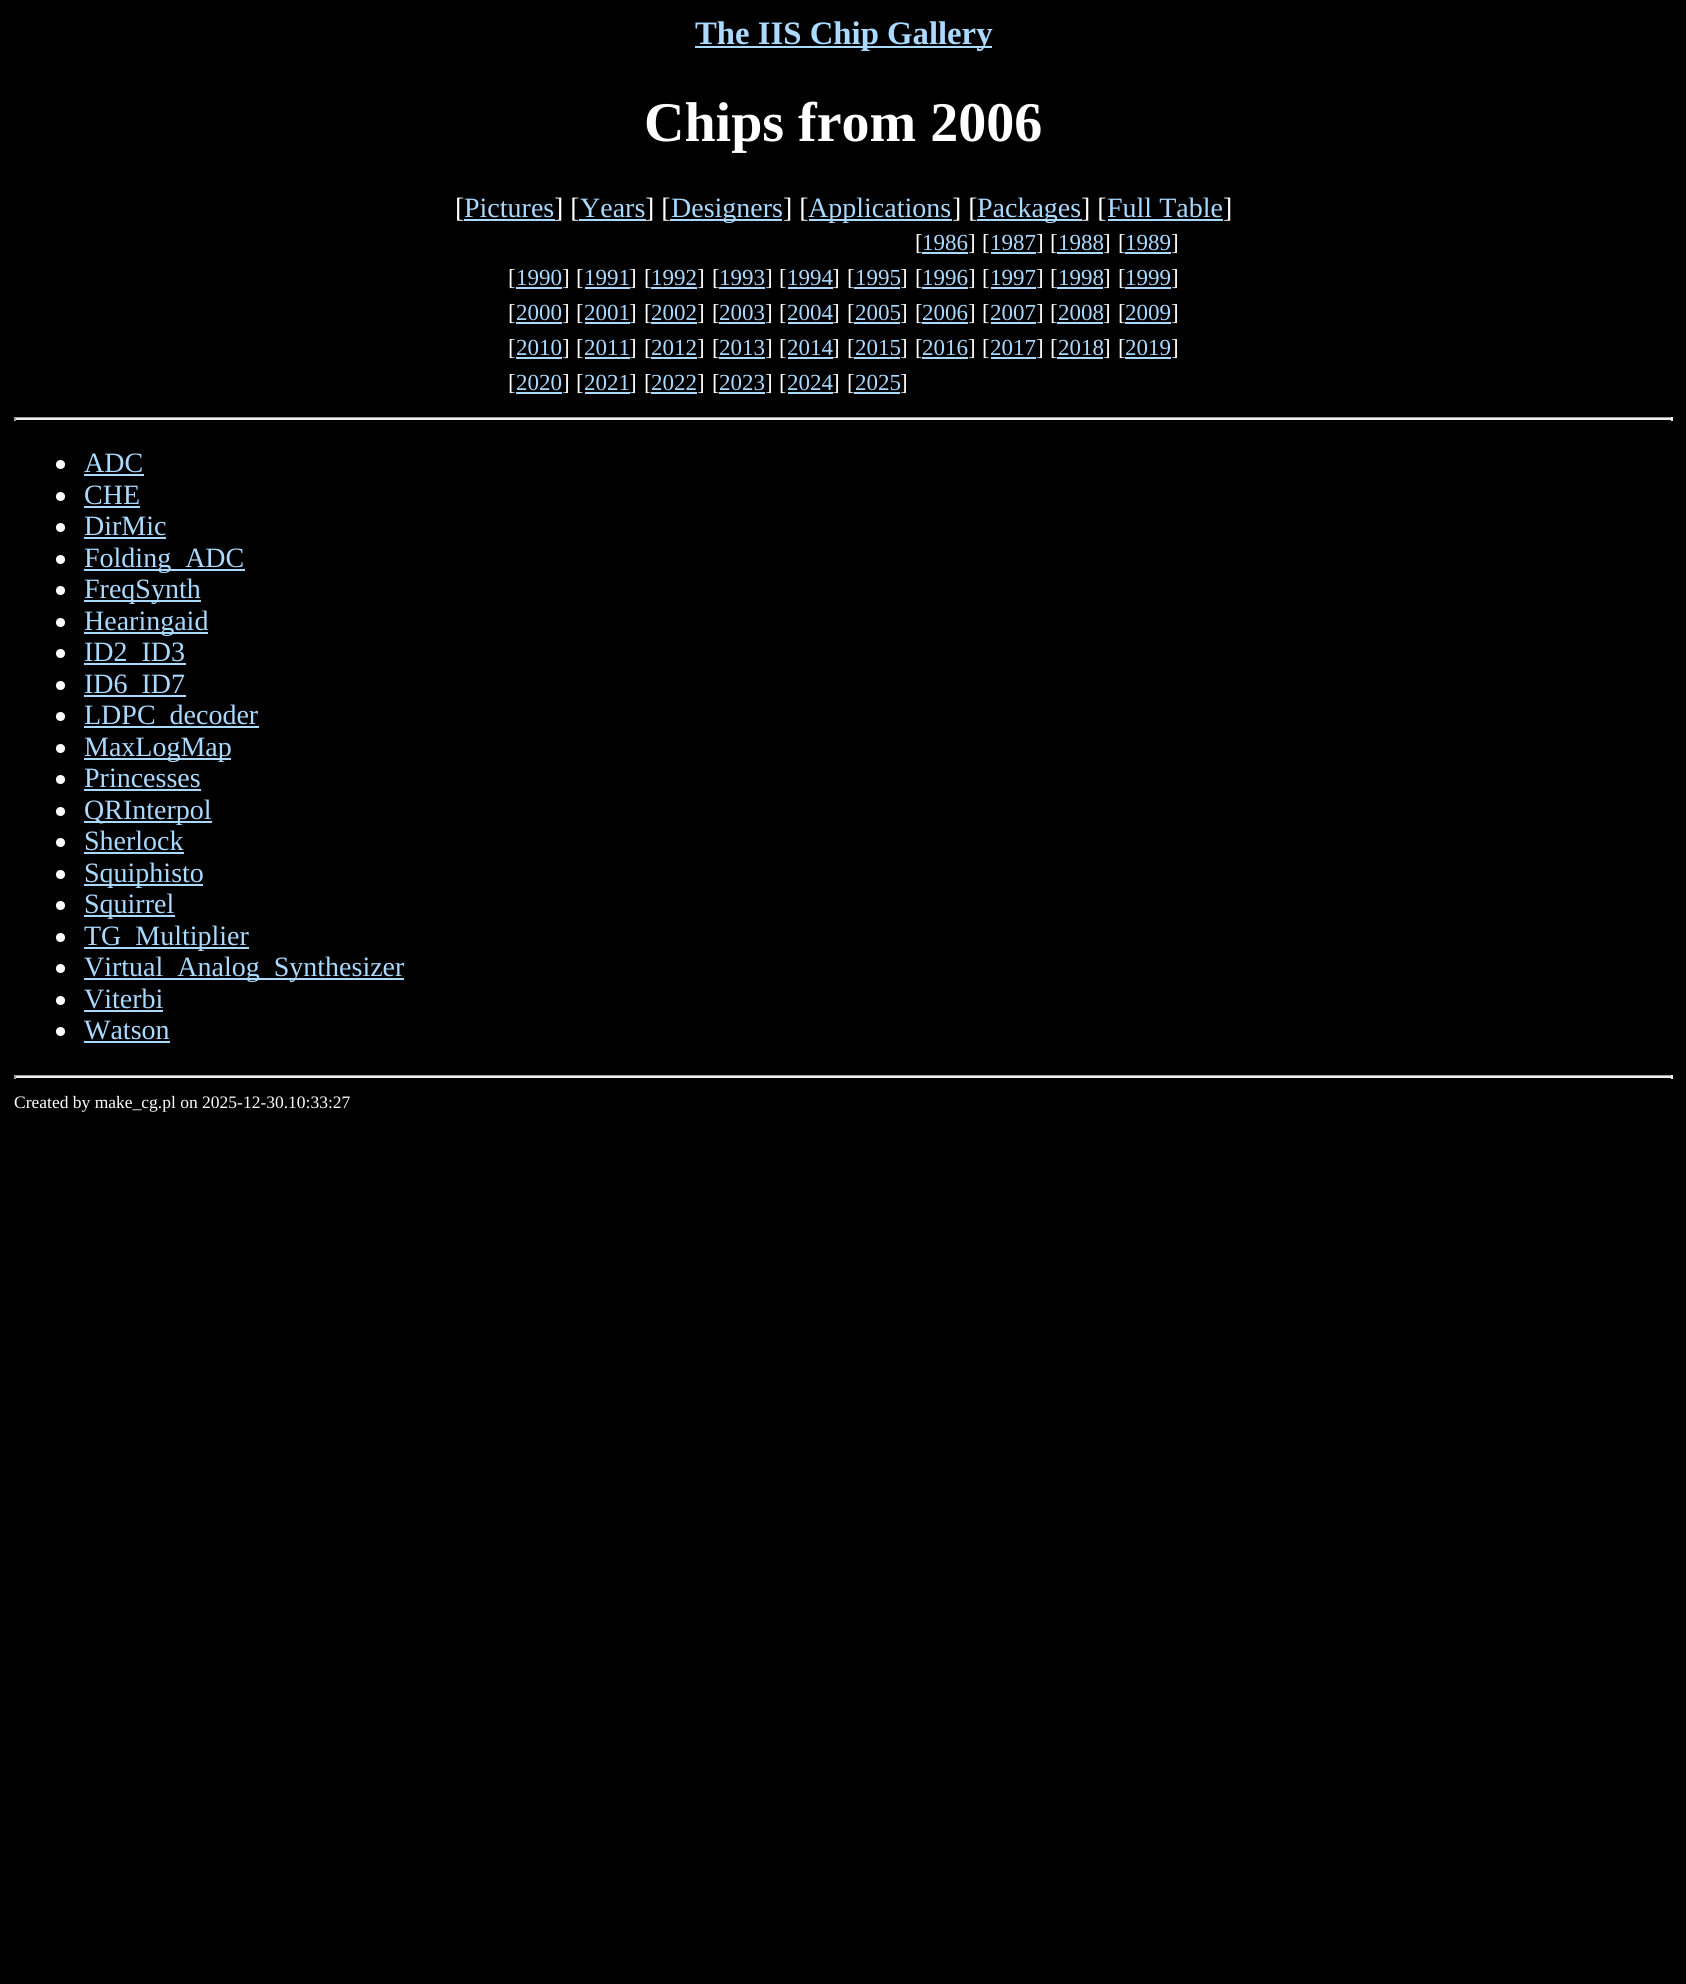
#include <cairo.h>
#include <math.h>
#include <stddef.h>


static void rgb(cairo_t *cr, int r, int g, int b)
{
	cairo_set_source_rgb(cr, r / 255.0, g / 255.0, b / 255.0);
}

static void face(cairo_t *cr, const char *family, double size, int italic, int bold)
{
	cairo_select_font_face(cr, family, italic ? CAIRO_FONT_SLANT_ITALIC : CAIRO_FONT_SLANT_NORMAL,
		bold ? CAIRO_FONT_WEIGHT_BOLD : CAIRO_FONT_WEIGHT_NORMAL);
	cairo_set_font_size(cr, size);
}

static void label(cairo_t *cr, double x, double y, const char *s)
{
	cairo_move_to(cr, x, y);
	cairo_show_text(cr, s);
}

static void rect(cairo_t *cr, double x, double y, double w, double h)
{
	cairo_rectangle(cr, x, y, w, h);
	cairo_fill(cr);
}

static void draw(cairo_t *cr) {
	rgb(cr, 0, 0, 0);
	cairo_paint(cr);
	rgb(cr, 170, 218, 255);
	rect(cr, 695, 46, 297, 2);
	face(cr, "Liberation Serif", 32.75, 0, 1);
	label(cr, 695, 44, "The IIS Chip Gallery");
	face(cr, "Liberation Serif", 56, 0, 1);
	rgb(cr, 255, 255, 255);
	label(cr, 644, 141, "Chips from 2006");
	face(cr, "Liberation Serif", 28, 0, 0);
	label(cr, 455, 217, "[");
	rgb(cr, 170, 218, 255);
	label(cr, 464, 217, "Pictures");
	rect(cr, 464, 219, 91, 2);
	rgb(cr, 255, 255, 255);
	label(cr, 554, 217, "] [");
	rgb(cr, 170, 218, 255);
	label(cr, 580, 217, "Years");
	rect(cr, 579, 219, 67, 2);
	rgb(cr, 255, 255, 255);
	label(cr, 645, 217, "] [");
	rgb(cr, 170, 218, 255);
	rect(cr, 670, 219, 112, 2);
	label(cr, 671, 217, "Designers");
	rgb(cr, 255, 255, 255);
	label(cr, 783, 217, "] [");
	rgb(cr, 170, 218, 255);
	rect(cr, 809, 219, 143, 2);
	label(cr, 808, 217, "Applications");
	rgb(cr, 255, 255, 255);
	label(cr, 952, 217, "] [");
	rgb(cr, 170, 218, 255);
	rect(cr, 977, 219, 105, 2);
	label(cr, 977, 217, "Packages");
	rgb(cr, 255, 255, 255);
	label(cr, 1081, 217, "] [");
	rgb(cr, 170, 218, 255);
	label(cr, 1107, 217, "Full Table");
	rect(cr, 1108, 219, 115, 2);
	rgb(cr, 255, 255, 255);
	label(cr, 1223, 217, "]");
	face(cr, "Liberation Serif", 23, 0, 0);
	label(cr, 915, 250, "[");
	rgb(cr, 170, 218, 255);
	rect(cr, 922, 252, 46, 2);
	label(cr, 922, 250, "1986");
	rgb(cr, 255, 255, 255);
	label(cr, 968, 250, "]");
	label(cr, 982, 250, "[");
	rgb(cr, 170, 218, 255);
	label(cr, 990, 250, "1987");
	rgb(cr, 255, 255, 255);
	label(cr, 1036, 250, "]");
	rgb(cr, 170, 218, 255);
	rect(cr, 991, 252, 45, 2);
	rgb(cr, 255, 255, 255);
	label(cr, 1050, 250, "[");
	rgb(cr, 170, 218, 255);
	rect(cr, 1057, 252, 46, 2);
	label(cr, 1058, 250, "1988");
	rgb(cr, 255, 255, 255);
	label(cr, 1103, 250, "]");
	label(cr, 1118, 250, "[");
	rgb(cr, 170, 218, 255);
	rect(cr, 1125, 252, 46, 2);
	label(cr, 1125, 250, "1989");
	rgb(cr, 255, 255, 255);
	label(cr, 1171, 250, "]");
	label(cr, 508, 285, "[");
	rgb(cr, 170, 218, 255);
	rect(cr, 516, 287, 46, 2);
	label(cr, 516, 285, "1990");
	rgb(cr, 255, 255, 255);
	label(cr, 562, 285, "]");
	label(cr, 576, 285, "[");
	rgb(cr, 170, 218, 255);
	label(cr, 584, 285, "1991");
	rgb(cr, 255, 255, 255);
	label(cr, 629, 285, "]");
	rgb(cr, 170, 218, 255);
	rect(cr, 585, 287, 45, 2);
	rgb(cr, 255, 255, 255);
	label(cr, 644, 285, "[");
	rgb(cr, 170, 218, 255);
	rect(cr, 651, 287, 46, 2);
	label(cr, 651, 285, "1992");
	rgb(cr, 255, 255, 255);
	label(cr, 697, 285, "]");
	label(cr, 712, 285, "[");
	rgb(cr, 170, 218, 255);
	rect(cr, 719, 287, 46, 2);
	label(cr, 719, 285, "1993");
	rgb(cr, 255, 255, 255);
	label(cr, 765, 285, "]");
	label(cr, 779, 285, "[");
	rgb(cr, 170, 218, 255);
	label(cr, 787, 285, "1994");
	rgb(cr, 255, 255, 255);
	label(cr, 832, 285, "]");
	rgb(cr, 170, 218, 255);
	rect(cr, 788, 287, 45, 2);
	rgb(cr, 255, 255, 255);
	label(cr, 847, 285, "[");
	rgb(cr, 170, 218, 255);
	rect(cr, 854, 287, 46, 2);
	label(cr, 855, 285, "1995");
	rgb(cr, 255, 255, 255);
	label(cr, 900, 285, "]");
	label(cr, 915, 285, "[");
	rgb(cr, 170, 218, 255);
	rect(cr, 922, 287, 46, 2);
	label(cr, 922, 285, "1996");
	rgb(cr, 255, 255, 255);
	label(cr, 968, 285, "]");
	label(cr, 982, 285, "[");
	rgb(cr, 170, 218, 255);
	label(cr, 990, 285, "1997");
	rgb(cr, 255, 255, 255);
	label(cr, 1036, 285, "]");
	rgb(cr, 170, 218, 255);
	rect(cr, 991, 287, 45, 2);
	rgb(cr, 255, 255, 255);
	label(cr, 1050, 285, "[");
	rgb(cr, 170, 218, 255);
	rect(cr, 1057, 287, 46, 2);
	label(cr, 1058, 285, "1998");
	rgb(cr, 255, 255, 255);
	label(cr, 1103, 285, "]");
	label(cr, 1118, 285, "[");
	rgb(cr, 170, 218, 255);
	rect(cr, 1125, 287, 46, 2);
	label(cr, 1125, 285, "1999");
	rgb(cr, 255, 255, 255);
	label(cr, 1171, 285, "]");
	label(cr, 508, 320, "[");
	rgb(cr, 170, 218, 255);
	rect(cr, 516, 322, 46, 2);
	label(cr, 516, 320, "2000");
	rgb(cr, 255, 255, 255);
	label(cr, 562, 320, "]");
	label(cr, 576, 320, "[");
	rgb(cr, 170, 218, 255);
	label(cr, 584, 320, "2001");
	rgb(cr, 255, 255, 255);
	label(cr, 629, 320, "]");
	rgb(cr, 170, 218, 255);
	rect(cr, 585, 322, 45, 2);
	rgb(cr, 255, 255, 255);
	label(cr, 644, 320, "[");
	rgb(cr, 170, 218, 255);
	rect(cr, 651, 322, 46, 2);
	label(cr, 651, 320, "2002");
	rgb(cr, 255, 255, 255);
	label(cr, 697, 320, "]");
	label(cr, 712, 320, "[");
	rgb(cr, 170, 218, 255);
	rect(cr, 719, 322, 46, 2);
	label(cr, 719, 320, "2003");
	rgb(cr, 255, 255, 255);
	label(cr, 765, 320, "]");
	label(cr, 779, 320, "[");
	rgb(cr, 170, 218, 255);
	label(cr, 787, 320, "2004");
	rgb(cr, 255, 255, 255);
	label(cr, 832, 320, "]");
	rgb(cr, 170, 218, 255);
	rect(cr, 788, 322, 45, 2);
	rgb(cr, 255, 255, 255);
	label(cr, 847, 320, "[");
	rgb(cr, 170, 218, 255);
	rect(cr, 854, 322, 46, 2);
	label(cr, 855, 320, "2005");
	rgb(cr, 255, 255, 255);
	label(cr, 900, 320, "]");
	label(cr, 915, 320, "[");
	rgb(cr, 170, 218, 255);
	rect(cr, 922, 322, 46, 2);
	label(cr, 922, 320, "2006");
	rgb(cr, 255, 255, 255);
	label(cr, 968, 320, "]");
	label(cr, 982, 320, "[");
	rgb(cr, 170, 218, 255);
	label(cr, 990, 320, "2007");
	rgb(cr, 255, 255, 255);
	label(cr, 1036, 320, "]");
	rgb(cr, 170, 218, 255);
	rect(cr, 991, 322, 45, 2);
	rgb(cr, 255, 255, 255);
	label(cr, 1050, 320, "[");
	rgb(cr, 170, 218, 255);
	rect(cr, 1057, 322, 46, 2);
	label(cr, 1058, 320, "2008");
	rgb(cr, 255, 255, 255);
	label(cr, 1103, 320, "]");
	label(cr, 1118, 320, "[");
	rgb(cr, 170, 218, 255);
	rect(cr, 1125, 322, 46, 2);
	label(cr, 1125, 320, "2009");
	rgb(cr, 255, 255, 255);
	label(cr, 1171, 320, "]");
	label(cr, 508, 355, "[");
	rgb(cr, 170, 218, 255);
	rect(cr, 516, 357, 46, 2);
	label(cr, 516, 355, "2010");
	rgb(cr, 255, 255, 255);
	label(cr, 562, 355, "]");
	label(cr, 576, 355, "[");
	rgb(cr, 170, 218, 255);
	label(cr, 584, 355, "2011");
	rgb(cr, 255, 255, 255);
	label(cr, 629, 355, "]");
	rgb(cr, 170, 218, 255);
	rect(cr, 585, 357, 45, 2);
	rgb(cr, 255, 255, 255);
	label(cr, 644, 355, "[");
	rgb(cr, 170, 218, 255);
	rect(cr, 651, 357, 46, 2);
	label(cr, 651, 355, "2012");
	rgb(cr, 255, 255, 255);
	label(cr, 697, 355, "]");
	label(cr, 712, 355, "[");
	rgb(cr, 170, 218, 255);
	rect(cr, 719, 357, 46, 2);
	label(cr, 719, 355, "2013");
	rgb(cr, 255, 255, 255);
	label(cr, 765, 355, "]");
	label(cr, 779, 355, "[");
	rgb(cr, 170, 218, 255);
	label(cr, 787, 355, "2014");
	rgb(cr, 255, 255, 255);
	label(cr, 832, 355, "]");
	rgb(cr, 170, 218, 255);
	rect(cr, 788, 357, 45, 2);
	rgb(cr, 255, 255, 255);
	label(cr, 847, 355, "[");
	rgb(cr, 170, 218, 255);
	rect(cr, 854, 357, 46, 2);
	label(cr, 855, 355, "2015");
	rgb(cr, 255, 255, 255);
	label(cr, 900, 355, "]");
	label(cr, 915, 355, "[");
	rgb(cr, 170, 218, 255);
	rect(cr, 922, 357, 46, 2);
	label(cr, 922, 355, "2016");
	rgb(cr, 255, 255, 255);
	label(cr, 968, 355, "]");
	label(cr, 982, 355, "[");
	rgb(cr, 170, 218, 255);
	label(cr, 990, 355, "2017");
	rgb(cr, 255, 255, 255);
	label(cr, 1036, 355, "]");
	rgb(cr, 170, 218, 255);
	rect(cr, 991, 357, 45, 2);
	rgb(cr, 255, 255, 255);
	label(cr, 1050, 355, "[");
	rgb(cr, 170, 218, 255);
	rect(cr, 1057, 357, 46, 2);
	label(cr, 1058, 355, "2018");
	rgb(cr, 255, 255, 255);
	label(cr, 1103, 355, "]");
	label(cr, 1118, 355, "[");
	rgb(cr, 170, 218, 255);
	rect(cr, 1125, 357, 46, 2);
	label(cr, 1125, 355, "2019");
	rgb(cr, 255, 255, 255);
	label(cr, 1171, 355, "]");
	label(cr, 508, 390, "[");
	rgb(cr, 170, 218, 255);
	rect(cr, 516, 392, 46, 2);
	label(cr, 516, 390, "2020");
	rgb(cr, 255, 255, 255);
	label(cr, 562, 390, "]");
	label(cr, 576, 390, "[");
	rgb(cr, 170, 218, 255);
	label(cr, 584, 390, "2021");
	rgb(cr, 255, 255, 255);
	label(cr, 629, 390, "]");
	rgb(cr, 170, 218, 255);
	rect(cr, 585, 392, 45, 2);
	rgb(cr, 255, 255, 255);
	label(cr, 644, 390, "[");
	rgb(cr, 170, 218, 255);
	rect(cr, 651, 392, 46, 2);
	label(cr, 651, 390, "2022");
	rgb(cr, 255, 255, 255);
	label(cr, 697, 390, "]");
	label(cr, 712, 390, "[");
	rgb(cr, 170, 218, 255);
	rect(cr, 719, 392, 46, 2);
	label(cr, 719, 390, "2023");
	rgb(cr, 255, 255, 255);
	label(cr, 765, 390, "]");
	label(cr, 779, 390, "[");
	rgb(cr, 170, 218, 255);
	label(cr, 787, 390, "2024");
	rgb(cr, 255, 255, 255);
	label(cr, 832, 390, "]");
	rgb(cr, 170, 218, 255);
	rect(cr, 788, 392, 45, 2);
	rgb(cr, 255, 255, 255);
	label(cr, 847, 390, "[");
	rgb(cr, 170, 218, 255);
	rect(cr, 854, 392, 46, 2);
	label(cr, 855, 390, "2025");
	rgb(cr, 255, 255, 255);
	label(cr, 900, 390, "]");
	rgb(cr, 159, 159, 159);
	rect(cr, 14, 417, 1659, 1);
	rgb(cr, 238, 238, 238);
	rect(cr, 1671, 417, 2, 4);
	rect(cr, 14, 418, 1659, 2);
	rgb(cr, 159, 159, 159);
	rect(cr, 14, 417, 2, 4);
	rgb(cr, 255, 255, 255);
	cairo_new_path(cr);
	cairo_arc(cr, 60.5, 464.5, 4.5, 0, 2 * M_PI);
	cairo_fill(cr);
	face(cr, "Liberation Serif", 28, 0, 0);
	rgb(cr, 170, 218, 255);
	label(cr, 84, 472, "ADC");
	rect(cr, 84, 474, 60, 2);
	rgb(cr, 255, 255, 255);
	cairo_new_path(cr);
	cairo_arc(cr, 60.5, 496.5, 4.5, 0, 2 * M_PI);
	cairo_fill(cr);
	rgb(cr, 170, 218, 255);
	label(cr, 84, 504, "CHE");
	rect(cr, 84, 506, 56, 2);
	rgb(cr, 255, 255, 255);
	cairo_new_path(cr);
	cairo_arc(cr, 60.5, 527.5, 4.5, 0, 2 * M_PI);
	cairo_fill(cr);
	rgb(cr, 170, 218, 255);
	label(cr, 84, 535, "DirMic");
	rect(cr, 84, 537, 82, 2);
	rgb(cr, 255, 255, 255);
	cairo_new_path(cr);
	cairo_arc(cr, 60.5, 559.5, 4.5, 0, 2 * M_PI);
	cairo_fill(cr);
	rgb(cr, 170, 218, 255);
	rect(cr, 84, 569, 161, 2);
	label(cr, 84, 567, "Folding_ADC");
	rgb(cr, 255, 255, 255);
	cairo_new_path(cr);
	cairo_arc(cr, 60.5, 590.5, 4.5, 0, 2 * M_PI);
	cairo_fill(cr);
	rgb(cr, 170, 218, 255);
	rect(cr, 84, 600, 117, 2);
	label(cr, 84, 598, "FreqSynth");
	rgb(cr, 255, 255, 255);
	cairo_new_path(cr);
	cairo_arc(cr, 60.5, 622.5, 4.5, 0, 2 * M_PI);
	cairo_fill(cr);
	rgb(cr, 170, 218, 255);
	rect(cr, 84, 632, 124, 2);
	label(cr, 84, 630, "Hearingaid");
	rgb(cr, 255, 255, 255);
	cairo_new_path(cr);
	cairo_arc(cr, 60.5, 653.5, 4.5, 0, 2 * M_PI);
	cairo_fill(cr);
	rgb(cr, 170, 218, 255);
	rect(cr, 84, 663, 102, 2);
	label(cr, 84, 661, "ID2_ID3");
	rgb(cr, 255, 255, 255);
	cairo_new_path(cr);
	cairo_arc(cr, 60.5, 685.5, 4.5, 0, 2 * M_PI);
	cairo_fill(cr);
	rgb(cr, 170, 218, 255);
	rect(cr, 84, 695, 102, 2);
	label(cr, 84, 693, "ID6_ID7");
	rgb(cr, 255, 255, 255);
	cairo_new_path(cr);
	cairo_arc(cr, 60.5, 716.5, 4.5, 0, 2 * M_PI);
	cairo_fill(cr);
	rgb(cr, 170, 218, 255);
	rect(cr, 84, 726, 175, 2);
	label(cr, 84, 724, "LDPC_decoder");
	rgb(cr, 255, 255, 255);
	cairo_new_path(cr);
	cairo_arc(cr, 60.5, 748.5, 4.5, 0, 2 * M_PI);
	cairo_fill(cr);
	rgb(cr, 170, 218, 255);
	rect(cr, 84, 758, 147, 2);
	label(cr, 84, 756, "MaxLogMap");
	rgb(cr, 255, 255, 255);
	cairo_new_path(cr);
	cairo_arc(cr, 60.5, 779.5, 4.5, 0, 2 * M_PI);
	cairo_fill(cr);
	rgb(cr, 170, 218, 255);
	label(cr, 84, 787, "Princesses");
	rect(cr, 84, 789, 117, 2);
	rgb(cr, 255, 255, 255);
	cairo_new_path(cr);
	cairo_arc(cr, 60.5, 811.5, 4.5, 0, 2 * M_PI);
	cairo_fill(cr);
	rgb(cr, 170, 218, 255);
	rect(cr, 84, 821, 128, 2);
	label(cr, 84, 819, "QRInterpol");
	rgb(cr, 255, 255, 255);
	cairo_new_path(cr);
	cairo_arc(cr, 60.5, 842.5, 4.5, 0, 2 * M_PI);
	cairo_fill(cr);
	rgb(cr, 170, 218, 255);
	label(cr, 84, 850, "Sherlock");
	rect(cr, 84, 852, 100, 2);
	rgb(cr, 255, 255, 255);
	cairo_new_path(cr);
	cairo_arc(cr, 60.5, 874.5, 4.5, 0, 2 * M_PI);
	cairo_fill(cr);
	rgb(cr, 170, 218, 255);
	rect(cr, 84, 884, 119, 2);
	label(cr, 84, 882, "Squiphisto");
	rgb(cr, 255, 255, 255);
	cairo_new_path(cr);
	cairo_arc(cr, 60.5, 905.5, 4.5, 0, 2 * M_PI);
	cairo_fill(cr);
	rgb(cr, 170, 218, 255);
	rect(cr, 84, 915, 91, 2);
	label(cr, 84, 913, "Squirrel");
	rgb(cr, 255, 255, 255);
	cairo_new_path(cr);
	cairo_arc(cr, 60.5, 937.5, 4.5, 0, 2 * M_PI);
	cairo_fill(cr);
	rgb(cr, 170, 218, 255);
	rect(cr, 84, 947, 165, 2);
	label(cr, 84, 945, "TG_Multiplier");
	rgb(cr, 255, 255, 255);
	cairo_new_path(cr);
	cairo_arc(cr, 60.5, 968.5, 4.5, 0, 2 * M_PI);
	cairo_fill(cr);
	rgb(cr, 170, 218, 255);
	rect(cr, 84, 978, 320, 2);
	label(cr, 84, 976, "Virtual_Analog_Synthesizer");
	rgb(cr, 255, 255, 255);
	cairo_new_path(cr);
	cairo_arc(cr, 60.5, 1000.5, 4.5, 0, 2 * M_PI);
	cairo_fill(cr);
	rgb(cr, 170, 218, 255);
	label(cr, 84, 1008, "Viterbi");
	rect(cr, 84, 1010, 79, 2);
	rgb(cr, 255, 255, 255);
	cairo_new_path(cr);
	cairo_arc(cr, 60.5, 1031.5, 4.5, 0, 2 * M_PI);
	cairo_fill(cr);
	rgb(cr, 170, 218, 255);
	label(cr, 84, 1039, "Watson");
	rect(cr, 84, 1041, 86, 2);
	rgb(cr, 159, 159, 159);
	rect(cr, 14, 1075, 1659, 1);
	rgb(cr, 238, 238, 238);
	rect(cr, 1671, 1075, 2, 4);
	rect(cr, 14, 1076, 1659, 2);
	rgb(cr, 159, 159, 159);
	rect(cr, 14, 1075, 2, 4);
	face(cr, "Liberation Serif", 17.5, 0, 0);
	rgb(cr, 255, 255, 255);
	label(cr, 14, 1108, "Created by make_cg.pl on 2025-12-30.10:33:27");
}

int main(void) {
	cairo_surface_t *surface = cairo_image_surface_create(CAIRO_FORMAT_RGB24, 1686, 1984);
	cairo_t *cr = cairo_create(surface);
	cairo_font_options_t *options = cairo_font_options_create();
	cairo_font_options_set_hint_metrics(options, CAIRO_HINT_METRICS_OFF);
	cairo_font_options_set_hint_style(options, CAIRO_HINT_STYLE_NONE);
	cairo_set_font_options(cr, options);
	cairo_set_miter_limit(cr, 4);
	draw(cr);
	cairo_surface_write_to_png(surface, "render.png");
	cairo_font_options_destroy(options);
	cairo_destroy(cr);
	cairo_surface_destroy(surface);
	return 0;
}
